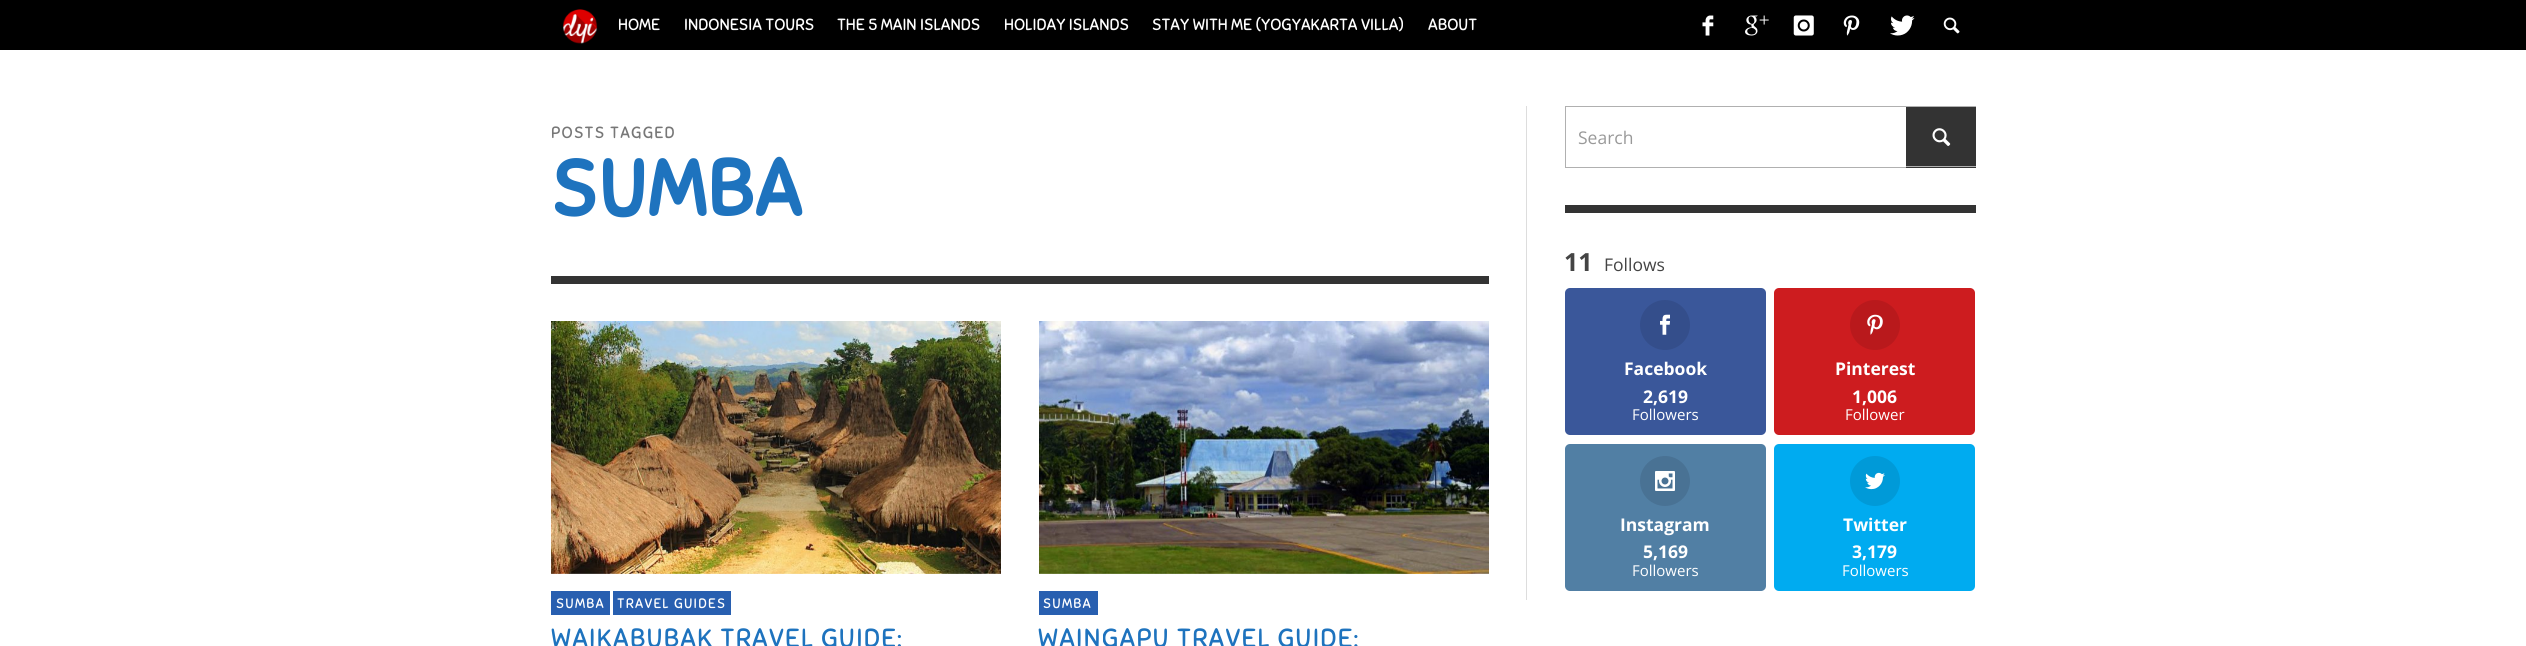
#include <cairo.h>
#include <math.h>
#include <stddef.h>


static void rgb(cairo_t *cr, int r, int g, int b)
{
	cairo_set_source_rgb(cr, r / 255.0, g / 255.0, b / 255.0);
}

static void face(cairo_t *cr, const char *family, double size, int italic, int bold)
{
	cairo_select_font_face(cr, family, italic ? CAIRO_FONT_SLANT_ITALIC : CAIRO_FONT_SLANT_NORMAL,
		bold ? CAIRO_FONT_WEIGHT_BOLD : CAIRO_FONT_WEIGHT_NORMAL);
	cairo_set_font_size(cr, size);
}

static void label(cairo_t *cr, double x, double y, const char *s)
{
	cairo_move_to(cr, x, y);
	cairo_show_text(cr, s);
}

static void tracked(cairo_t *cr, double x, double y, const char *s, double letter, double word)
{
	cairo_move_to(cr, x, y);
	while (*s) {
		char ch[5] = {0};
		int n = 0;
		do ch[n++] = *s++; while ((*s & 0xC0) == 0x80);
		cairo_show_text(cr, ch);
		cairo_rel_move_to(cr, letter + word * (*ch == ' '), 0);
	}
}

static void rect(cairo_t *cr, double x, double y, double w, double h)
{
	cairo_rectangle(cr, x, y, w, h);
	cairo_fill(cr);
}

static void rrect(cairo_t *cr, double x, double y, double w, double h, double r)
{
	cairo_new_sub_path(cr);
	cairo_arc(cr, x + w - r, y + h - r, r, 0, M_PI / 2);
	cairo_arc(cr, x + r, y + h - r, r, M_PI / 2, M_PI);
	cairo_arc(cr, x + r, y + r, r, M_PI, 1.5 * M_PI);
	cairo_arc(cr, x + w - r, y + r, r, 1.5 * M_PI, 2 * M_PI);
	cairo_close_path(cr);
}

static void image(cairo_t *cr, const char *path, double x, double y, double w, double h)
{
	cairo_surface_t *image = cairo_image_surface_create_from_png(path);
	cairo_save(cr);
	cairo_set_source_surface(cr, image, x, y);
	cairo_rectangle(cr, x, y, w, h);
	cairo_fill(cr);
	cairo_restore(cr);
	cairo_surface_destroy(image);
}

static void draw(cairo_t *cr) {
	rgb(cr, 255, 255, 255);
	cairo_paint(cr);
	rgb(cr, 0, 0, 0);
	rect(cr, 0, 0, 2526, 50);
	image(cr, "image0.png", 563, 9, 35, 35);
	face(cr, "Sniglet", 16.25, 0, 0);
	rgb(cr, 255, 255, 255);
	label(cr, 618, 30, "HOME");
	label(cr, 684, 30, "INDONESIA TOURS");
	label(cr, 837, 30, "THE 5 MAIN ISLANDS");
	label(cr, 1004, 30, "HOLIDAY ISLANDS");
	label(cr, 1152, 30, "STAY WITH ME (YOGYAKARTA VILLA)");
	label(cr, 1428, 30, "ABOUT");
	image(cr, "image1.png", 1702, 15, 12, 21);
	image(cr, "image2.png", 1745, 15, 24, 21);
	image(cr, "image3.png", 1793, 15, 21, 21);
	image(cr, "image4.png", 1843, 15, 17, 21);
	image(cr, "image5.png", 1890, 15, 25, 21);
	image(cr, "image6.png", 1943, 17, 17, 17);
	rgb(cr, 119, 119, 119);
	tracked(cr, 551, 138, "POSTS TAGGED", 1.25, 0);
	face(cr, "Sniglet", 79, 0, 1);
	rgb(cr, 30, 115, 190);
	tracked(cr, 551, 216, "SUMBA", 1.25, 0);
	rgb(cr, 51, 51, 51);
	rect(cr, 551, 276, 938, 8);
	image(cr, "image7.png", 551, 321, 450, 253);
	rgb(cr, 40, 95, 176);
	rect(cr, 551, 591, 59, 24);
	face(cr, "Sniglet", 13.75, 0, 0);
	rgb(cr, 255, 255, 255);
	tracked(cr, 556, 608, "SUMBA", 1.25, 0);
	rgb(cr, 40, 95, 176);
	rect(cr, 613, 591, 118, 24);
	rgb(cr, 255, 255, 255);
	tracked(cr, 617, 608, "TRAVEL GUIDES", 1.25, 0);
	face(cr, "Sniglet", 26.25, 0, 0);
	rgb(cr, 30, 115, 190);
	tracked(cr, 551, 647, "WAIKABUBAK TRAVEL GUIDE:", 1.25, 0);
	image(cr, "image8.png", 1039, 321, 450, 253);
	rgb(cr, 40, 95, 176);
	rect(cr, 1039, 591, 59, 24);
	face(cr, "Sniglet", 13.75, 0, 0);
	rgb(cr, 255, 255, 255);
	tracked(cr, 1043, 608, "SUMBA", 1.25, 0);
	face(cr, "Sniglet", 26.25, 0, 0);
	rgb(cr, 30, 115, 190);
	tracked(cr, 1038, 647, "WAINGAPU TRAVEL GUIDE:", 1.25, 0);
	rgb(cr, 221, 221, 221);
	rect(cr, 1526, 106, 1, 494);
	cairo_rectangle(cr, 1565.5, 106.5, 410, 61);
	rgb(cr, 176, 176, 176);
	cairo_set_line_width(cr, 1);
	cairo_stroke(cr);
	face(cr, "Open Sans", 17.5, 0, 0);
	rgb(cr, 153, 153, 153);
	label(cr, 1578, 144, "Search");
	rgb(cr, 51, 51, 51);
	rect(cr, 1906, 107, 70, 61);
	rgb(cr, 176, 176, 176);
	rect(cr, 1906, 166, 70, 1);
	image(cr, "image9.png", 1932, 128, 19, 18);
	rgb(cr, 51, 51, 51);
	rect(cr, 1565, 205, 411, 8);
	face(cr, "Open Sans", 25, 0, 1);
	rgb(cr, 68, 68, 68);
	label(cr, 1564, 271, "11");
	face(cr, "Open Sans", 17.5, 0, 0);
	label(cr, 1604, 271, "Follows");
	rgb(cr, 58, 87, 154);
	rrect(cr, 1565, 288, 201, 147, 5);
	cairo_fill(cr);
	rgb(cr, 52, 78, 139);
	cairo_arc(cr, 1665, 325, 25, 0, 2 * M_PI);
	cairo_fill(cr);
	image(cr, "image10.png", 1660, 314, 10, 21);
	face(cr, "Open Sans", 17.5, 0, 1);
	rgb(cr, 255, 255, 255);
	label(cr, 1624, 375, "Facebook");
	label(cr, 1643, 403, "2,619");
	face(cr, "Open Sans", 15, 0, 0);
	label(cr, 1632, 420, "Followers");
	rgb(cr, 205, 28, 31);
	rrect(cr, 1774, 288, 201, 147, 5);
	cairo_fill(cr);
	rgb(cr, 185, 25, 28);
	cairo_arc(cr, 1875, 325, 25, 0, 2 * M_PI);
	cairo_fill(cr);
	image(cr, "image11.png", 1867, 314, 16, 21);
	face(cr, "Open Sans", 17.5, 0, 1);
	rgb(cr, 255, 255, 255);
	label(cr, 1835, 375, "Pinterest");
	label(cr, 1852, 403, "1,006");
	face(cr, "Open Sans", 15, 0, 0);
	label(cr, 1845, 420, "Follower");
	rgb(cr, 81, 127, 164);
	rrect(cr, 1565, 444, 201, 147, 5);
	cairo_fill(cr);
	rgb(cr, 73, 114, 148);
	cairo_arc(cr, 1665, 481, 25, 0, 2 * M_PI);
	cairo_fill(cr);
	image(cr, "image12.png", 1655, 471, 20, 20);
	face(cr, "Open Sans", 17.5, 0, 1);
	rgb(cr, 255, 255, 255);
	label(cr, 1620, 531, "Instagram");
	label(cr, 1643, 558, "5,169");
	face(cr, "Open Sans", 15, 0, 0);
	label(cr, 1632, 576, "Followers");
	rgb(cr, 0, 171, 240);
	rrect(cr, 1774, 444, 201, 147, 5);
	cairo_fill(cr);
	rgb(cr, 0, 154, 216);
	cairo_arc(cr, 1875, 481, 25, 0, 2 * M_PI);
	cairo_fill(cr);
	image(cr, "image13.png", 1865, 472, 20, 18);
	face(cr, "Open Sans", 17.5, 0, 1);
	rgb(cr, 255, 255, 255);
	label(cr, 1843, 531, "Twitter");
	label(cr, 1852, 558, "3,179");
	face(cr, "Open Sans", 15, 0, 0);
	label(cr, 1842, 576, "Followers");
}

int main(void) {
	cairo_surface_t *surface = cairo_image_surface_create(CAIRO_FORMAT_RGB24, 2526, 646);
	cairo_t *cr = cairo_create(surface);
	cairo_font_options_t *options = cairo_font_options_create();
	cairo_font_options_set_hint_metrics(options, CAIRO_HINT_METRICS_OFF);
	cairo_font_options_set_hint_style(options, CAIRO_HINT_STYLE_NONE);
	cairo_set_font_options(cr, options);
	cairo_set_miter_limit(cr, 4);
	draw(cr);
	cairo_surface_write_to_png(surface, "render.png");
	cairo_font_options_destroy(options);
	cairo_destroy(cr);
	cairo_surface_destroy(surface);
	return 0;
}
